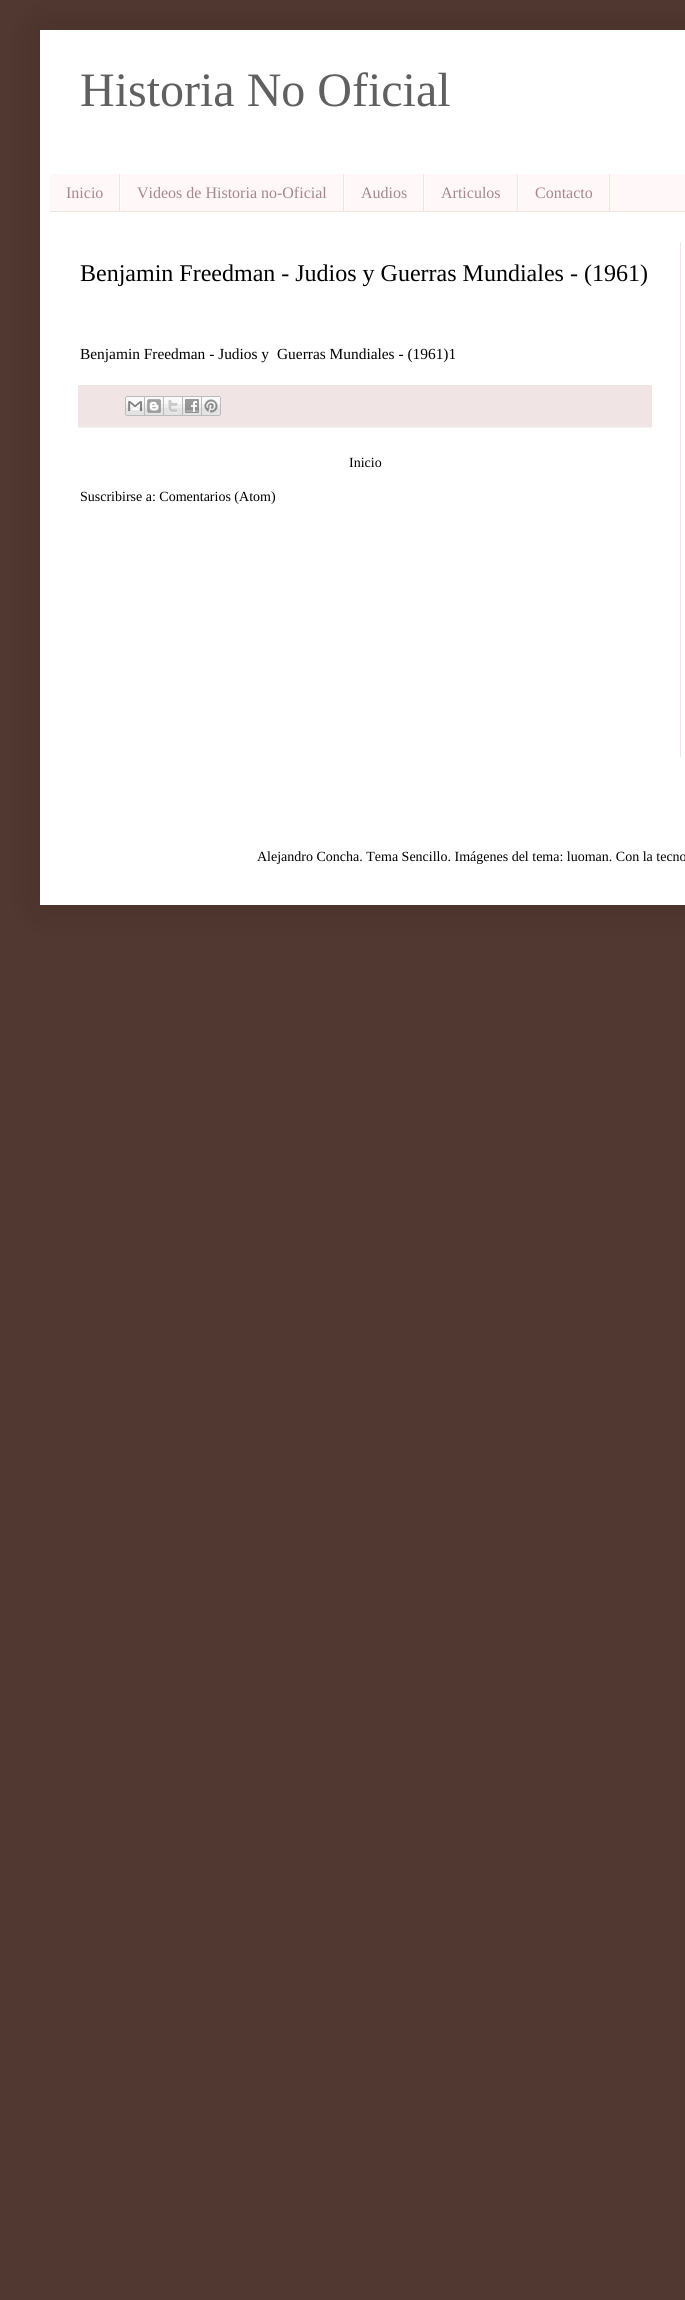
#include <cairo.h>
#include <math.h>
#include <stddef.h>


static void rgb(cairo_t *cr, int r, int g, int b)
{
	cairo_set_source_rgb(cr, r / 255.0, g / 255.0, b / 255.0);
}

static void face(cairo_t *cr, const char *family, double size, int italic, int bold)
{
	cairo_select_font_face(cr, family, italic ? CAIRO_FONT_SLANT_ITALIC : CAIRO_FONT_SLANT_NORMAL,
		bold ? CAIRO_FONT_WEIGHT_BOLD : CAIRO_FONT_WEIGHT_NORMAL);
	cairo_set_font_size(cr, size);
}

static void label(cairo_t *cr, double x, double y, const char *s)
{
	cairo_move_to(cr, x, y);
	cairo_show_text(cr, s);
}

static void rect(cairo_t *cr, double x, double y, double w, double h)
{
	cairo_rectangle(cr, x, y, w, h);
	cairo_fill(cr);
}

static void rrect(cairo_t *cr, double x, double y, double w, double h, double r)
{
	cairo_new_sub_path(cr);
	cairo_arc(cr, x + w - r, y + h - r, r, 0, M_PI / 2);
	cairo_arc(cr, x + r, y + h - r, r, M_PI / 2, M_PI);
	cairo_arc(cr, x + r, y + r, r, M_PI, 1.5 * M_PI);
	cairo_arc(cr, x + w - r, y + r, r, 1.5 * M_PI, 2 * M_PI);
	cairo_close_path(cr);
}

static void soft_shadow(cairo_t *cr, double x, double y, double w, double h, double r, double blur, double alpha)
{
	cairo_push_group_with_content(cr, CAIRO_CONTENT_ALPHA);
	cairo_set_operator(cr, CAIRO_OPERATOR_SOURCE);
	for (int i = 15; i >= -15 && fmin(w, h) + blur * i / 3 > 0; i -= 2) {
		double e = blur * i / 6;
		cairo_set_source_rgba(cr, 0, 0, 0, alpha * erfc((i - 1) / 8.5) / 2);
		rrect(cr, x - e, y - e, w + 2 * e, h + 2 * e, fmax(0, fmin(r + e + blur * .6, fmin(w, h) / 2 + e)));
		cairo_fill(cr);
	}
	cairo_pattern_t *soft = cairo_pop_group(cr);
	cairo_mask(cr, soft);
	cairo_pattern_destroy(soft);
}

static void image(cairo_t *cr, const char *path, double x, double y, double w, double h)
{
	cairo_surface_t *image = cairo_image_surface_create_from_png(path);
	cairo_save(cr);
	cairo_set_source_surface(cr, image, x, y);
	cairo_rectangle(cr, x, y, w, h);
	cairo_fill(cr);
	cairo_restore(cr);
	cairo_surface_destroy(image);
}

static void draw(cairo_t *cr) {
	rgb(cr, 81, 56, 49);
	cairo_paint(cr);
	rgb(cr, 0, 0, 0);
	soft_shadow(cr, 40, 30, 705, 875, 0, 20, 0.15);
	rgb(cr, 255, 255, 255);
	rect(cr, 40, 30, 645, 875);
	face(cr, "Liberation Serif", 48, 0, 0);
	rgb(cr, 96, 96, 96);
	label(cr, 80, 106, "Historia No Oficial");
	rgb(cr, 255, 247, 248);
	rect(cr, 50, 174, 635, 37);
	rgb(cr, 238, 229, 221);
	rect(cr, 50, 211, 635, 1);
	rect(cr, 119, 174, 1, 37);
	face(cr, "Liberation Serif", 16, 0, 0);
	rgb(cr, 165, 135, 143);
	label(cr, 66, 198, "Inicio");
	rgb(cr, 238, 229, 221);
	rect(cr, 343, 174, 1, 37);
	rgb(cr, 255, 255, 255);
	rect(cr, 120, 174, 1, 37);
	rgb(cr, 165, 135, 143);
	label(cr, 137, 198, "Videos de Historia no-Oficial");
	rgb(cr, 238, 229, 221);
	rect(cr, 423, 174, 1, 37);
	rgb(cr, 255, 255, 255);
	rect(cr, 344, 174, 1, 37);
	rgb(cr, 165, 135, 143);
	label(cr, 361, 198, "Audios");
	rgb(cr, 238, 229, 221);
	rect(cr, 517, 174, 1, 37);
	rgb(cr, 255, 255, 255);
	rect(cr, 424, 174, 1, 37);
	rgb(cr, 165, 135, 143);
	label(cr, 441, 198, "Articulos");
	rgb(cr, 238, 229, 221);
	rect(cr, 609, 174, 1, 37);
	rgb(cr, 255, 255, 255);
	rect(cr, 518, 174, 1, 37);
	rgb(cr, 165, 135, 143);
	label(cr, 535, 198, "Contacto");
	face(cr, "Liberation Serif", 24, 0, 0);
	rgb(cr, 0, 0, 0);
	label(cr, 80, 281, "Benjamin Freedman - Judios y Guerras Mundiales - (1961)");
	face(cr, "Liberation Serif", 15.4, 0, 0);
	label(cr, 80, 359, "Benjamin Freedman - Judios y");
	label(cr, 277, 359, "Guerras Mundiales - (1961)1");
	rgb(cr, 241, 228, 229);
	rect(cr, 78, 385, 574, 42);
	rgb(cr, 243, 243, 243);
	rect(cr, 78, 427, 574, 1);
	image(cr, "image0.png", 125, 396, 20, 20);
	image(cr, "image1.png", 145, 396, 19, 20);
	image(cr, "image2.png", 164, 396, 19, 20);
	image(cr, "image3.png", 183, 396, 19, 20);
	image(cr, "image4.png", 202, 396, 19, 20);
	face(cr, "Liberation Serif", 14, 0, 0);
	rgb(cr, 0, 0, 0);
	label(cr, 349, 467, "Inicio");
	label(cr, 80, 501, "Suscribirse a: Comentarios (Atom)");
	rgb(cr, 241, 228, 232);
	rect(cr, 680, 242, 1, 515);
	rgb(cr, 0, 0, 0);
	label(cr, 257, 861, "Alejandro Concha. Tema Sencillo. Imágenes del tema: luoman. Con la tecno");
}

int main(void) {
	cairo_surface_t *surface = cairo_image_surface_create(CAIRO_FORMAT_RGB24, 685, 2300);
	cairo_t *cr = cairo_create(surface);
	cairo_font_options_t *options = cairo_font_options_create();
	cairo_font_options_set_hint_metrics(options, CAIRO_HINT_METRICS_OFF);
	cairo_font_options_set_hint_style(options, CAIRO_HINT_STYLE_NONE);
	cairo_set_font_options(cr, options);
	cairo_set_miter_limit(cr, 4);
	draw(cr);
	cairo_surface_write_to_png(surface, "render.png");
	cairo_font_options_destroy(options);
	cairo_destroy(cr);
	cairo_surface_destroy(surface);
	return 0;
}
